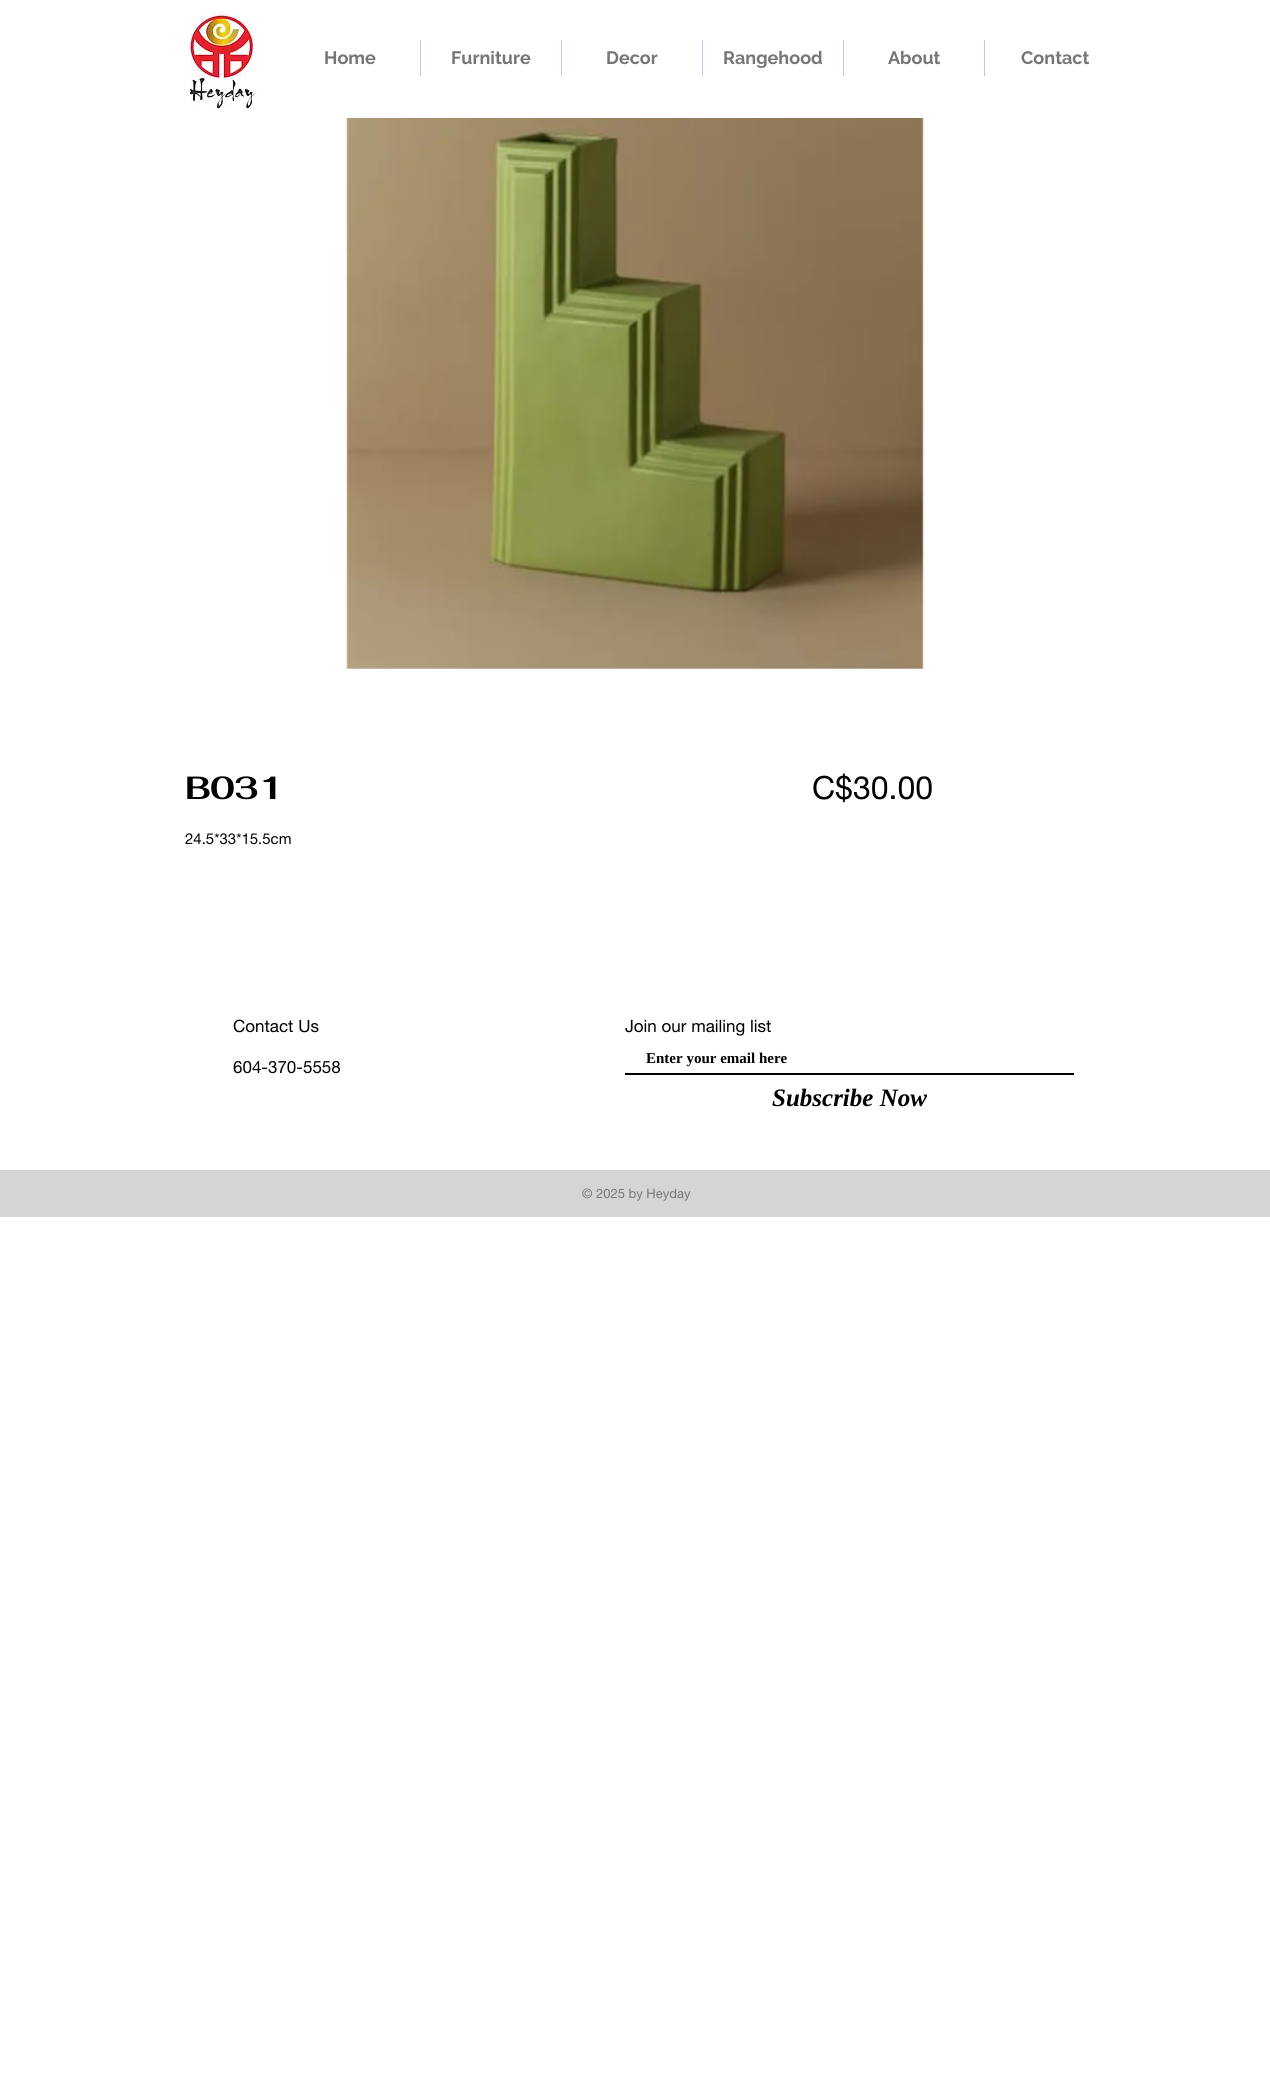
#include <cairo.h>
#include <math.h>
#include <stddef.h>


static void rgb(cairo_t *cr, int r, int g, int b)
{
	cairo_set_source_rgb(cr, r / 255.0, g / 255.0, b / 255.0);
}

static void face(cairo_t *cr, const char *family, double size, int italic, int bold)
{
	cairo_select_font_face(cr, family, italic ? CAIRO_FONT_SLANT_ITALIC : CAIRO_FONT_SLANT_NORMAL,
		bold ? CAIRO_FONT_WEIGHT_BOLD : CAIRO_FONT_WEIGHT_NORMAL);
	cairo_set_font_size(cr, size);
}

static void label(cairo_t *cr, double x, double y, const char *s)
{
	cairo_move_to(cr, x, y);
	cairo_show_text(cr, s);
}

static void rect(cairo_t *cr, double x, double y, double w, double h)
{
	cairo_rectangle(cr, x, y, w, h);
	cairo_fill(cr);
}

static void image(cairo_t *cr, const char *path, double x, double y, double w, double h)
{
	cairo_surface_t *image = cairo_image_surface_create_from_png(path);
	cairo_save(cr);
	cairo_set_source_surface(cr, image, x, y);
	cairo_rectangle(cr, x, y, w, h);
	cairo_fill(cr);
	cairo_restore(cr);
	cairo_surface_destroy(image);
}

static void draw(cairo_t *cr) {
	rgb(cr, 255, 255, 255);
	cairo_paint(cr);
	image(cr, "image0.png", 189, 13, 68, 96);
	face(cr, "Raleway", 18, 0, 1);
	rgb(cr, 117, 117, 117);
	label(cr, 324, 64, "Home");
	rgb(cr, 216, 189, 226);
	rect(cr, 420, 40, 1, 36);
	rgb(cr, 117, 117, 117);
	label(cr, 451, 64, "Furniture");
	rgb(cr, 216, 189, 226);
	rect(cr, 561, 40, 1, 36);
	rgb(cr, 117, 117, 117);
	label(cr, 606, 64, "Decor");
	rgb(cr, 216, 189, 226);
	rect(cr, 702, 40, 1, 36);
	rgb(cr, 117, 117, 117);
	label(cr, 723, 64, "Rangehood");
	rgb(cr, 216, 189, 226);
	rect(cr, 843, 40, 1, 36);
	rgb(cr, 117, 117, 117);
	label(cr, 888, 64, "About");
	rgb(cr, 216, 189, 226);
	rect(cr, 984, 40, 1, 36);
	rgb(cr, 117, 117, 117);
	label(cr, 1021, 64, "Contact");
	image(cr, "image1.png", 346, 118, 579, 551);
	face(cr, "Fahkwang", 32, 0, 1);
	rgb(cr, 0, 0, 0);
	label(cr, 185, 799, "B031");
	face(cr, "helvetica neue", 15, 0, 0);
	label(cr, 185, 844, "24.5*33*15.5cm");
	face(cr, "helvetica neue", 32, 0, 0);
	label(cr, 812, 799, "C$30.00");
	face(cr, "helvetica neue", 17, 0, 0);
	label(cr, 233, 1032, "Contact Us");
	label(cr, 233, 1073, "604-370-5558");
	label(cr, 625, 1032, "Join our mailing list");
	rect(cr, 625, 1073, 449, 2);
	face(cr, "Liberation Serif", 15, 0, 1);
	label(cr, 646, 1063, "Enter your email here");
	face(cr, "Liberation Serif", 25, 1, 1);
	label(cr, 772, 1106, "Subscribe Now");
	rgb(cr, 213, 213, 213);
	rect(cr, 0, 1170, 1270, 47);
	face(cr, "helvetica neue", 13, 0, 0);
	rgb(cr, 117, 117, 117);
	label(cr, 582, 1198, "© 2025 by Heyday");
}

int main(void) {
	cairo_surface_t *surface = cairo_image_surface_create(CAIRO_FORMAT_RGB24, 1270, 2096);
	cairo_t *cr = cairo_create(surface);
	cairo_font_options_t *options = cairo_font_options_create();
	cairo_font_options_set_hint_metrics(options, CAIRO_HINT_METRICS_OFF);
	cairo_font_options_set_hint_style(options, CAIRO_HINT_STYLE_NONE);
	cairo_set_font_options(cr, options);
	cairo_set_miter_limit(cr, 4);
	draw(cr);
	cairo_surface_write_to_png(surface, "render.png");
	cairo_font_options_destroy(options);
	cairo_destroy(cr);
	cairo_surface_destroy(surface);
	return 0;
}
